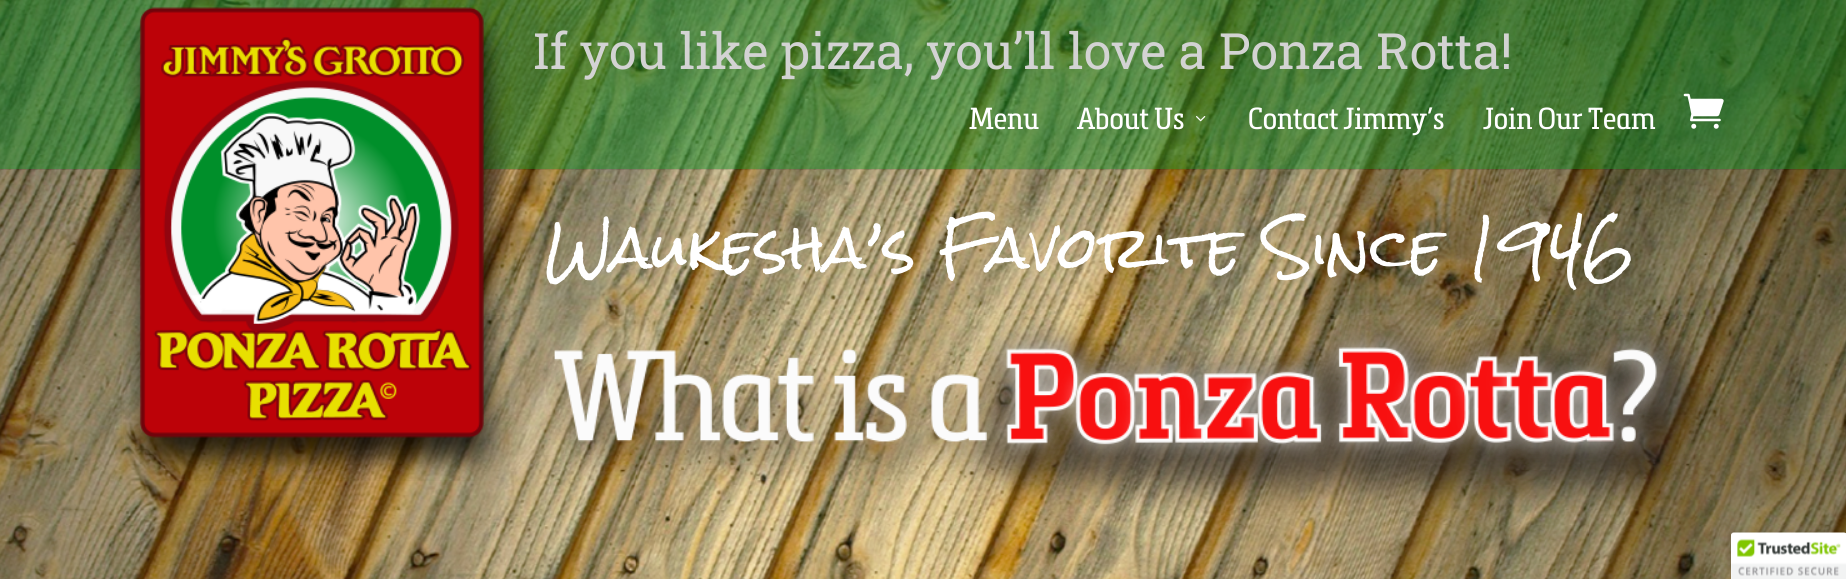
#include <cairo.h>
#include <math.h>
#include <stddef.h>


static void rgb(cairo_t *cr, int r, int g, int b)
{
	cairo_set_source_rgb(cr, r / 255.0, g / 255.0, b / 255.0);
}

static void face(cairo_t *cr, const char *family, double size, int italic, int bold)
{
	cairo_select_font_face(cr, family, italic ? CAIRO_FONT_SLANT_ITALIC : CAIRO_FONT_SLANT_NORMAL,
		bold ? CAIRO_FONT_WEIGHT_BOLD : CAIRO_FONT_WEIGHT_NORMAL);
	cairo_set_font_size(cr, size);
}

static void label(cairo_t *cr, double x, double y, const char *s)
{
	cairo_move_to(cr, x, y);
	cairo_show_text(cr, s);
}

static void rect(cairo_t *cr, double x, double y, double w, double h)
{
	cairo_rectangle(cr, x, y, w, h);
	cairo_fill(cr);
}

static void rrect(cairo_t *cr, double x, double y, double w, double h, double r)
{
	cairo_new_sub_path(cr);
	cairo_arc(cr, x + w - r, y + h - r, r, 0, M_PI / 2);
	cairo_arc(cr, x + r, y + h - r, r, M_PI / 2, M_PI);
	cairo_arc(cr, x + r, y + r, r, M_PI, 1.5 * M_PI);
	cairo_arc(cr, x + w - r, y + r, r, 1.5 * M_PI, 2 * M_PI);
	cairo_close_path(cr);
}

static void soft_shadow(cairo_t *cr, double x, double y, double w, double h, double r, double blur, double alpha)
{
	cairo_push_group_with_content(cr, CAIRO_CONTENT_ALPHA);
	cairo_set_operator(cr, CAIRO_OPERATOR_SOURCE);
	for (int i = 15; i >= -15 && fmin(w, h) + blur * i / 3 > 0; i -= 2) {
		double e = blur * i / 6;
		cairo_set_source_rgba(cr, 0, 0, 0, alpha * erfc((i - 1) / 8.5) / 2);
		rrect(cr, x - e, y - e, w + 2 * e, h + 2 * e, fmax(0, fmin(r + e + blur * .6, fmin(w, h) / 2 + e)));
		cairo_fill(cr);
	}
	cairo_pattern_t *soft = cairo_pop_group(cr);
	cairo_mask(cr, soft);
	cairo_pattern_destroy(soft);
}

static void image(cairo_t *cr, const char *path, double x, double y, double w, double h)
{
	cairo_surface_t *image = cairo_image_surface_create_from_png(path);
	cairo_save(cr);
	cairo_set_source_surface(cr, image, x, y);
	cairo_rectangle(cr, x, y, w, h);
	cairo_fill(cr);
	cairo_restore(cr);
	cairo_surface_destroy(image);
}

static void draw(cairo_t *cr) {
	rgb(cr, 255, 255, 255);
	cairo_paint(cr);
	image(cr, "image0.png", 0, 0, 1846, 579);
	cairo_set_source_rgba(cr, 0, 0, 0, 0.1);
	rect(cr, 0, 169, 1846, 1);
	cairo_set_source_rgba(cr, 0.063, 0.549, 0.145, 0.48);
	rect(cr, 0, 0, 1846, 169);
	image(cr, "image1.png", 123, 7, 387, 474);
	face(cr, "Roboto Slab", 50, 0, 0);
	rgb(cr, 211, 211, 211);
	label(cr, 533, 69, "If you like pizza, you’ll love a Ponza Rotta!");
	face(cr, "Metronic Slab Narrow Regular", 30, 0, 0);
	rgb(cr, 255, 255, 255);
	label(cr, 969, 129, "Menu");
	label(cr, 1077, 129, "About Us");
	image(cr, "image2.png", 1196, 116, 10, 6);
	label(cr, 1248, 129, "Contact Jimmy’s");
	label(cr, 1483, 129, "Join Our Team");
	image(cr, "image3.png", 1683, 93, 41, 36);
	face(cr, "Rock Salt", 56.25, 0, 0);
	label(cr, 546, 270, "Waukesha’s Favorite Since 1946");
	image(cr, "image4.png", 546, 317, 1165, 196);
	rgb(cr, 0, 0, 0);
	soft_shadow(cr, 1731, 533, 115, 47, 2.5, 3, 0.2);
	rgb(cr, 255, 255, 255);
	cairo_new_path(cr);
	cairo_move_to(cr, 1733.5, 533);
	cairo_line_to(cr, 1846, 533);
	cairo_line_to(cr, 1846, 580);
	cairo_line_to(cr, 1731, 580);
	cairo_line_to(cr, 1731, 535.5);
	cairo_curve_to(cr, 1731, 534, 1732, 533, 1733.5, 533);
	cairo_close_path(cr);
	cairo_fill(cr);
	image(cr, "image5.png", 1731, 532, 115, 47);
}

int main(void) {
	cairo_surface_t *surface = cairo_image_surface_create(CAIRO_FORMAT_RGB24, 1846, 579);
	cairo_t *cr = cairo_create(surface);
	cairo_font_options_t *options = cairo_font_options_create();
	cairo_font_options_set_hint_metrics(options, CAIRO_HINT_METRICS_OFF);
	cairo_font_options_set_hint_style(options, CAIRO_HINT_STYLE_NONE);
	cairo_set_font_options(cr, options);
	cairo_set_miter_limit(cr, 4);
	draw(cr);
	cairo_surface_write_to_png(surface, "render.png");
	cairo_font_options_destroy(options);
	cairo_destroy(cr);
	cairo_surface_destroy(surface);
	return 0;
}
